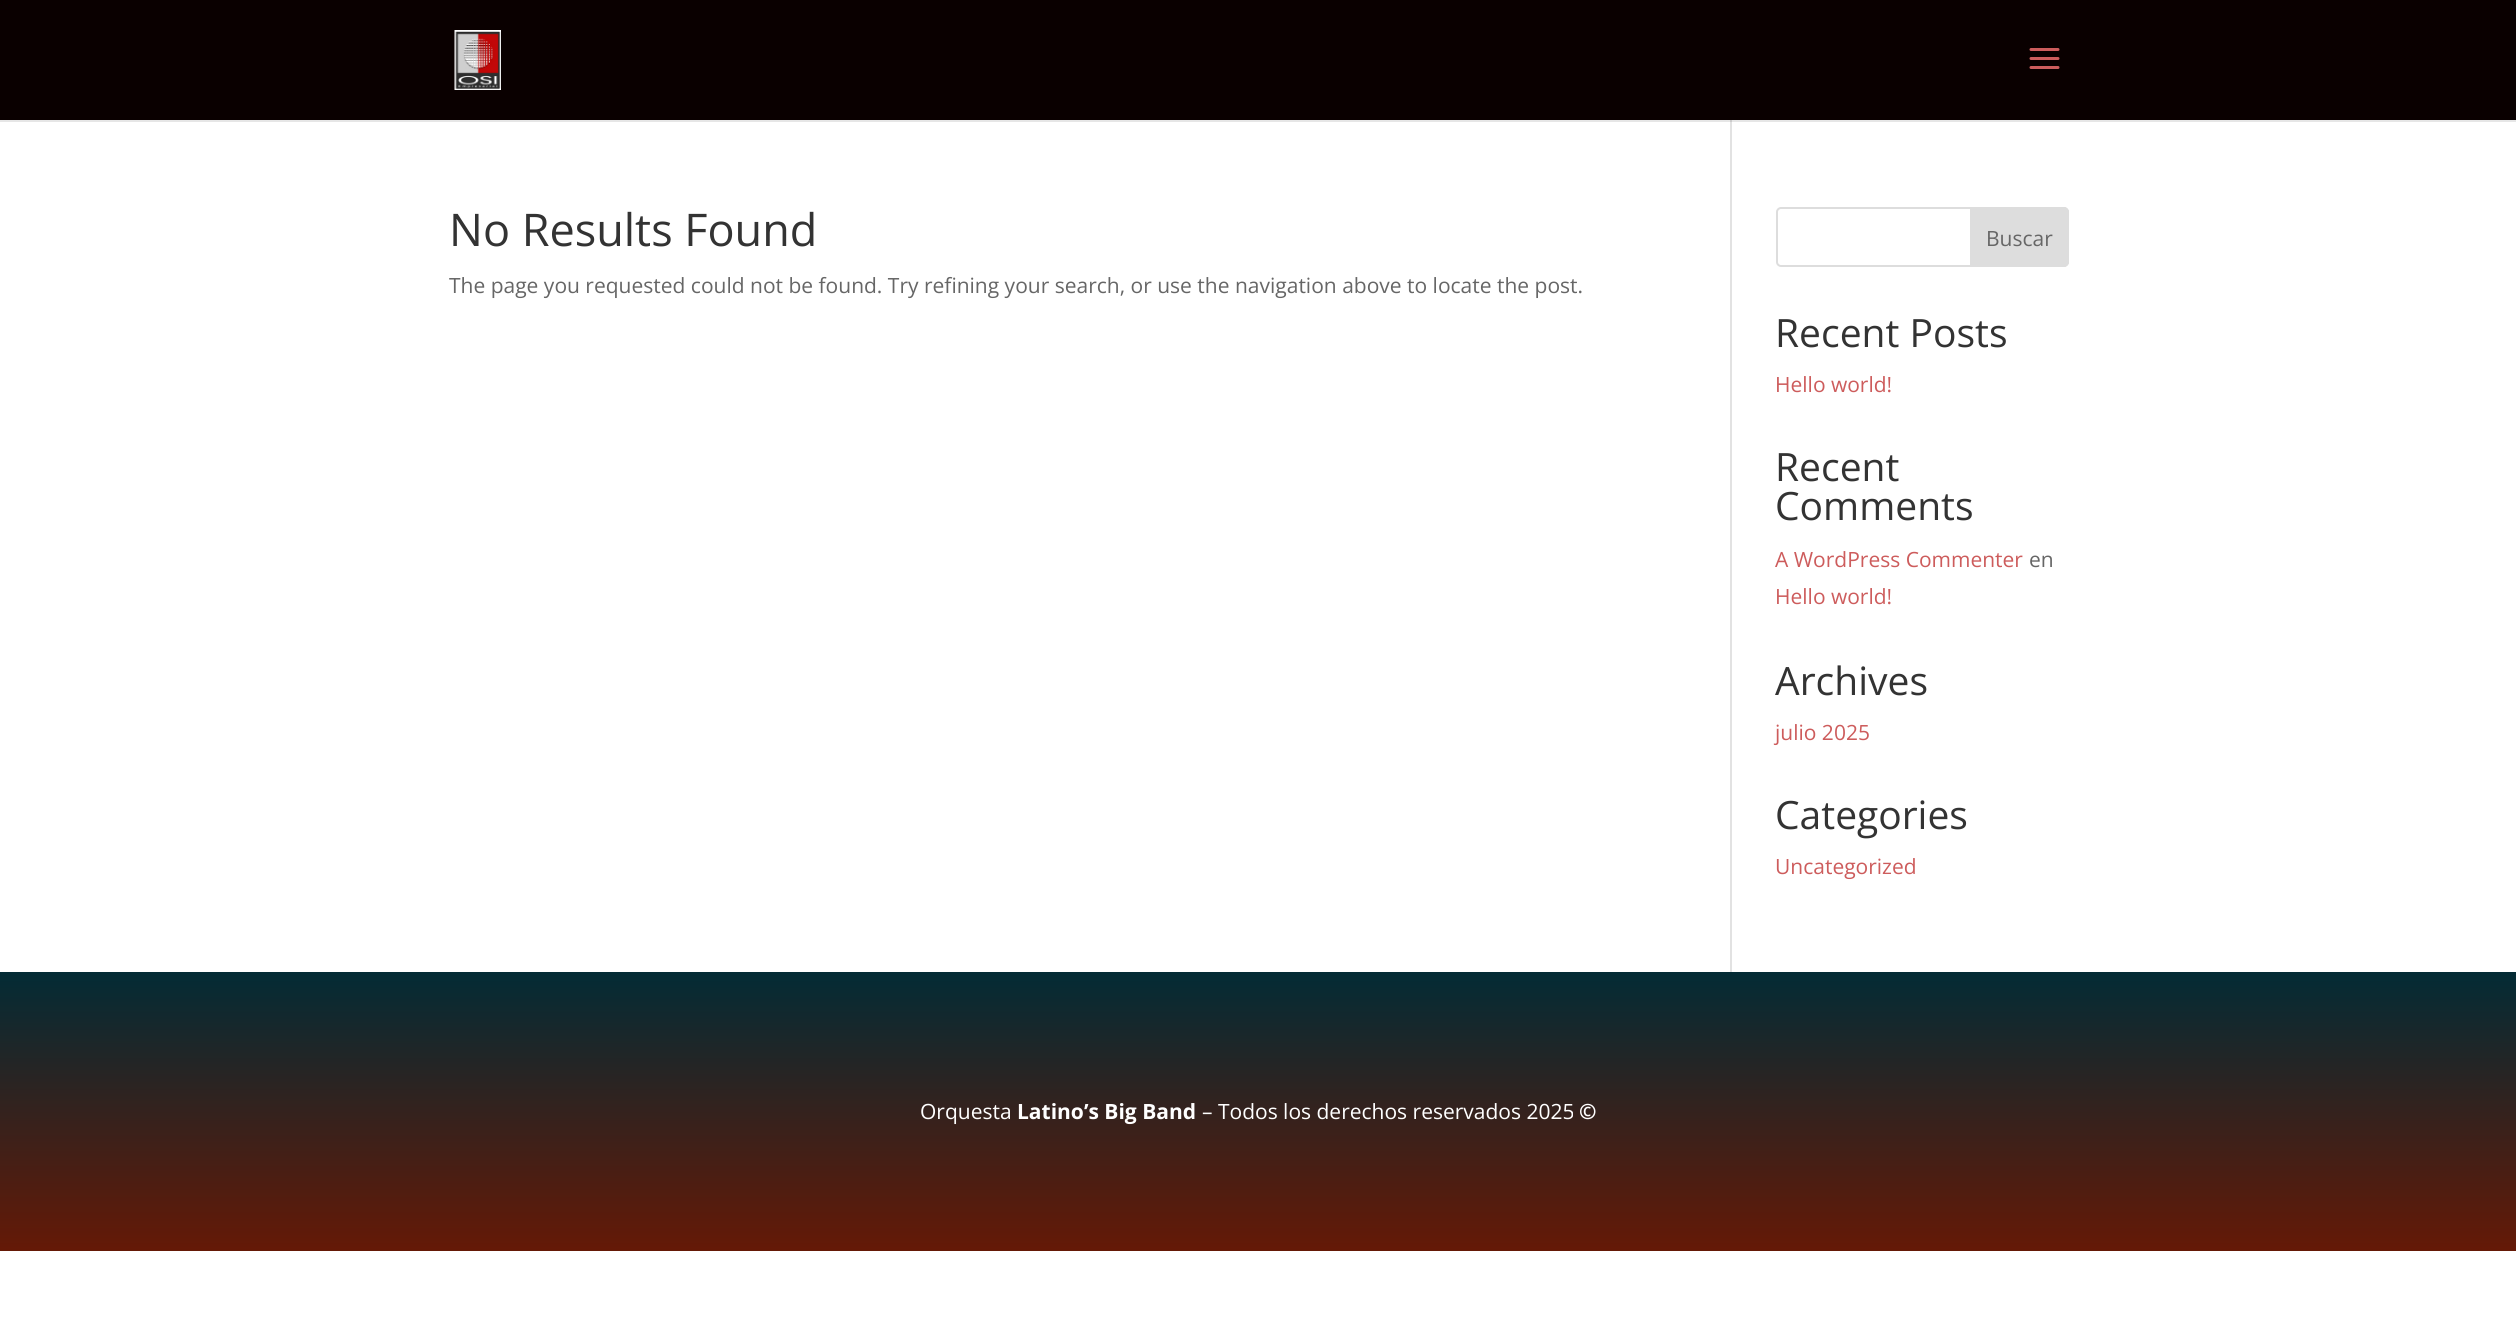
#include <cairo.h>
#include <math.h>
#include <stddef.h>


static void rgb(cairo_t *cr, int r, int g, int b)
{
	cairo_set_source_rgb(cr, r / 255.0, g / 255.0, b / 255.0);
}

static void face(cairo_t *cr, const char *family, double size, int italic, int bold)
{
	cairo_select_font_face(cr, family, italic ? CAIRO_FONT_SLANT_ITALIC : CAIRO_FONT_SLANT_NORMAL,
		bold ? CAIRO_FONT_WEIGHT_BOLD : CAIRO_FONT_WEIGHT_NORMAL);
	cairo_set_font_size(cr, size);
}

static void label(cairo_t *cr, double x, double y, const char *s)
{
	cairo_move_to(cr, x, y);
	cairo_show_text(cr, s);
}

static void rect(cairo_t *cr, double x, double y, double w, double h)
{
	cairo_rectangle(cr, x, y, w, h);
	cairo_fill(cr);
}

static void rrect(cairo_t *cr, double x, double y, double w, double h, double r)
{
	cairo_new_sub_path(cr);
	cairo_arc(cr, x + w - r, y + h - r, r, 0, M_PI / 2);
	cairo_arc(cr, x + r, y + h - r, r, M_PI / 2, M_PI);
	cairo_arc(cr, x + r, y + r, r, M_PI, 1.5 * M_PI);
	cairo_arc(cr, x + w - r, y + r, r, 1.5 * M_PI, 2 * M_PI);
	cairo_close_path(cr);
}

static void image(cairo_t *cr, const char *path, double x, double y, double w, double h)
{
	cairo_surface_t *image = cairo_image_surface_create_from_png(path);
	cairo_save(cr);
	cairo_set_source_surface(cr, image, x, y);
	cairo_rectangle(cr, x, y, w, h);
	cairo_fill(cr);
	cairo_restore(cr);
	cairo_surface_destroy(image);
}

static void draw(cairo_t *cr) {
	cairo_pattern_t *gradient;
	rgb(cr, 255, 255, 255);
	cairo_paint(cr);
	rgb(cr, 230, 230, 230);
	rect(cr, 0, 120, 2516, 2);
	rgb(cr, 10, 0, 0);
	rect(cr, 0, 0, 2516, 120);
	image(cr, "image0.png", 454, 30, 47, 60);
	image(cr, "image1.png", 2029, 48, 31, 21);
	rgb(cr, 226, 226, 226);
	rect(cr, 1730, 120, 2, 852);
	rgb(cr, 203, 203, 203);
	rect(cr, 1730, 120, 2, 2);
	face(cr, "Open Sans", 45, 0, 0);
	rgb(cr, 51, 51, 51);
	label(cr, 449, 246, "No Results Found");
	face(cr, "Open Sans", 21, 0, 0);
	rgb(cr, 102, 102, 102);
	label(cr, 449, 293, "The page you requested could not be found. Try refining your search, or use the navigation above to locate the post.");
	rrect(cr, 1777, 208, 291, 58, 4);
	rgb(cr, 221, 221, 221);
	cairo_stroke(cr);
	cairo_new_path(cr);
	cairo_move_to(cr, 1971, 208);
	cairo_line_to(cr, 2064, 208);
	cairo_curve_to(cr, 2066, 208, 2068, 210, 2068, 212);
	cairo_line_to(cr, 2068, 262);
	cairo_curve_to(cr, 2068, 264, 2066, 266, 2064, 266);
	cairo_line_to(cr, 1971, 266);
	cairo_close_path(cr);
	cairo_fill_preserve(cr);
	cairo_stroke(cr);
	rgb(cr, 102, 102, 102);
	label(cr, 1986, 246, "Buscar");
	face(cr, "Open Sans", 39, 0, 0);
	rgb(cr, 51, 51, 51);
	label(cr, 1775, 347, "Recent Posts");
	face(cr, "Open Sans", 21, 0, 0);
	rgb(cr, 205, 92, 92);
	label(cr, 1775, 392, "Hello world!");
	face(cr, "Open Sans", 39, 0, 0);
	rgb(cr, 51, 51, 51);
	label(cr, 1775, 481, "Recent");
	label(cr, 1775, 520, "Comments");
	face(cr, "Open Sans", 21, 0, 0);
	rgb(cr, 205, 92, 92);
	label(cr, 1775, 567, "A WordPress Commenter");
	rgb(cr, 102, 102, 102);
	label(cr, 2029, 567, "en");
	rgb(cr, 205, 92, 92);
	label(cr, 1775, 604, "Hello world!");
	face(cr, "Open Sans", 39, 0, 0);
	rgb(cr, 51, 51, 51);
	label(cr, 1775, 695, "Archives");
	face(cr, "Open Sans", 21, 0, 0);
	rgb(cr, 205, 92, 92);
	label(cr, 1775, 740, "julio 2025");
	face(cr, "Open Sans", 39, 0, 0);
	rgb(cr, 51, 51, 51);
	label(cr, 1775, 829, "Categories");
	face(cr, "Open Sans", 21, 0, 0);
	rgb(cr, 205, 92, 92);
	label(cr, 1775, 874, "Uncategorized");
	gradient = cairo_pattern_create_linear(1259, 972, 1259, 1251);
	cairo_pattern_add_color_stop_rgba(gradient, 0, 0.012, 0.169, 0.208, 1);
	cairo_pattern_add_color_stop_rgba(gradient, 1, 0.396, 0.098, 0.024, 1);
	cairo_set_source(cr, gradient);
	cairo_pattern_destroy(gradient);
	rect(cr, 0, 972, 2516, 279);
	rgb(cr, 255, 255, 255);
	label(cr, 920, 1119, "Orquesta");
	face(cr, "Open Sans", 21, 0, 1);
	label(cr, 1017, 1119, "Latino’s Big Band");
	face(cr, "Open Sans", 21, 0, 0);
	label(cr, 1202, 1119, "– Todos los derechos reservados 2025");
	face(cr, "Open Sans", 21, 0, 1);
	label(cr, 1579, 1119, "©");
}

int main(void) {
	cairo_surface_t *surface = cairo_image_surface_create(CAIRO_FORMAT_RGB24, 2516, 1330);
	cairo_t *cr = cairo_create(surface);
	cairo_font_options_t *options = cairo_font_options_create();
	cairo_font_options_set_hint_metrics(options, CAIRO_HINT_METRICS_OFF);
	cairo_font_options_set_hint_style(options, CAIRO_HINT_STYLE_NONE);
	cairo_set_font_options(cr, options);
	cairo_set_miter_limit(cr, 4);
	draw(cr);
	cairo_surface_write_to_png(surface, "render.png");
	cairo_font_options_destroy(options);
	cairo_destroy(cr);
	cairo_surface_destroy(surface);
	return 0;
}
